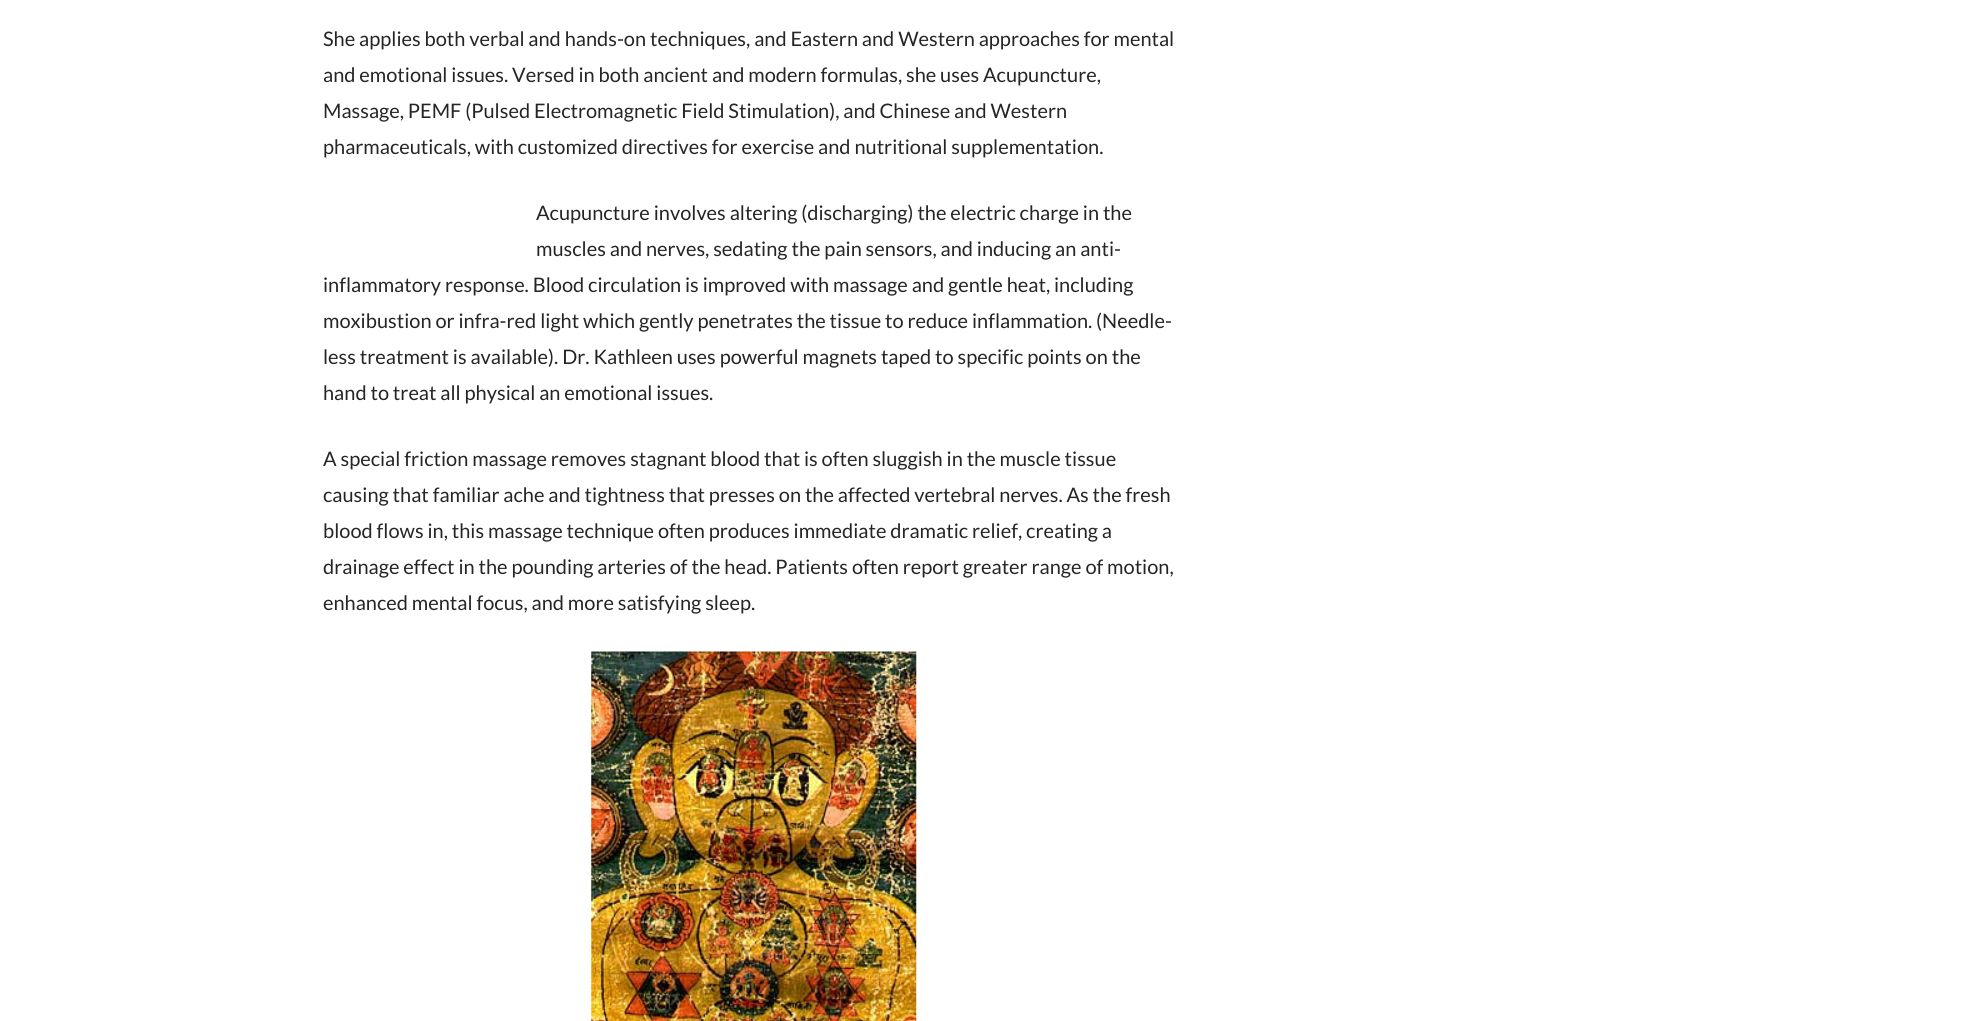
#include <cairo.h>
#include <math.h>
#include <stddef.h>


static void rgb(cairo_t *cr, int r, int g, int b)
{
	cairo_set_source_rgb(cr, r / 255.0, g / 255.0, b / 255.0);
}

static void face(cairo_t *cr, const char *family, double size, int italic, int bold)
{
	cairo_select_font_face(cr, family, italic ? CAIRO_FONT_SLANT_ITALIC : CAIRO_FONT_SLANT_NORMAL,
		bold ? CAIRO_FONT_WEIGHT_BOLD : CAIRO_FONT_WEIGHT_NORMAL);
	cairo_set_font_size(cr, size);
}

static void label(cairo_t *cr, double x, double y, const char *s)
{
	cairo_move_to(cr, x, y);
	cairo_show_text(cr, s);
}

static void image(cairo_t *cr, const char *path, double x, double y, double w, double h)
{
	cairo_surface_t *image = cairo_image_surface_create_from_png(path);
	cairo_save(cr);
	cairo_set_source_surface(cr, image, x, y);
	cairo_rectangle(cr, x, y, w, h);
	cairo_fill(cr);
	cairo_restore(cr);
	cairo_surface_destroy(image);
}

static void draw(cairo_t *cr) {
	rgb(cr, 255, 255, 255);
	cairo_paint(cr);
	face(cr, "Lato", 20, 0, 0);
	rgb(cr, 37, 37, 37);
	label(cr, 323, 46, "She applies both verbal and hands-on techniques, and Eastern and Western approaches for mental");
	label(cr, 323, 82, "and emotional issues. Versed in both ancient and modern formulas, she uses Acupuncture,");
	label(cr, 323, 118, "Massage, PEMF (Pulsed Electromagnetic Field Stimulation), and Chinese and Western");
	label(cr, 323, 154, "pharmaceuticals, with customized directives for exercise and nutritional supplementation.");
	label(cr, 536, 220, "Acupuncture involves altering (discharging) the electric charge in the");
	label(cr, 536, 256, "muscles and nerves, sedating the pain sensors, and inducing an anti-");
	label(cr, 323, 292, "inflammatory response. Blood circulation is improved with massage and gentle heat, including");
	label(cr, 323, 328, "moxibustion or infra-red light which gently penetrates the tissue to reduce inflammation. (Needle-");
	label(cr, 323, 364, "less treatment is available). Dr. Kathleen uses powerful magnets taped to specific points on the");
	label(cr, 323, 400, "hand to treat all physical an emotional issues.");
	label(cr, 323, 466, "A special friction massage removes stagnant blood that is often sluggish in the muscle tissue");
	label(cr, 323, 502, "causing that familiar ache and tightness that presses on the affected vertebral nerves. As the fresh");
	label(cr, 323, 538, "blood flows in, this massage technique often produces immediate dramatic relief, creating a");
	label(cr, 323, 574, "drainage effect in the pounding arteries of the head. Patients often report greater range of motion,");
	label(cr, 323, 610, "enhanced mental focus, and more satisfying sleep.");
	image(cr, "image0.png", 591, 651, 326, 370);
}

int main(void) {
	cairo_surface_t *surface = cairo_image_surface_create(CAIRO_FORMAT_RGB24, 1983, 1021);
	cairo_t *cr = cairo_create(surface);
	cairo_font_options_t *options = cairo_font_options_create();
	cairo_font_options_set_hint_metrics(options, CAIRO_HINT_METRICS_OFF);
	cairo_font_options_set_hint_style(options, CAIRO_HINT_STYLE_NONE);
	cairo_set_font_options(cr, options);
	cairo_set_miter_limit(cr, 4);
	draw(cr);
	cairo_surface_write_to_png(surface, "render.png");
	cairo_font_options_destroy(options);
	cairo_destroy(cr);
	cairo_surface_destroy(surface);
	return 0;
}
